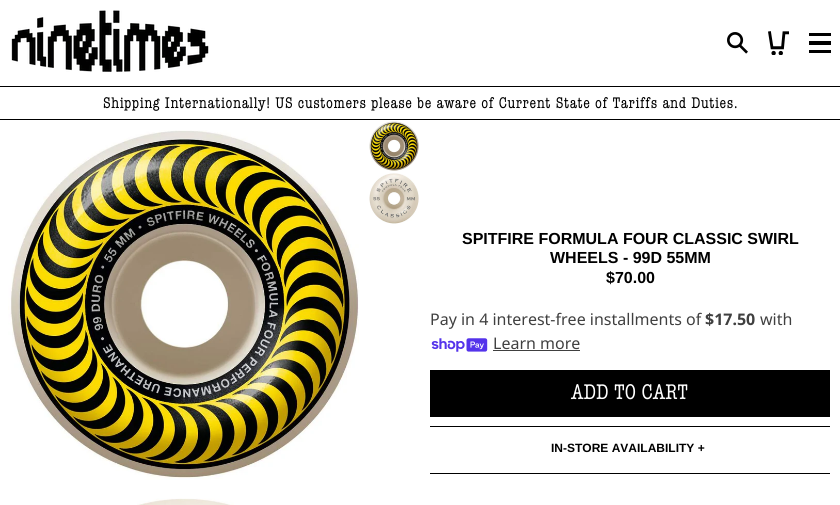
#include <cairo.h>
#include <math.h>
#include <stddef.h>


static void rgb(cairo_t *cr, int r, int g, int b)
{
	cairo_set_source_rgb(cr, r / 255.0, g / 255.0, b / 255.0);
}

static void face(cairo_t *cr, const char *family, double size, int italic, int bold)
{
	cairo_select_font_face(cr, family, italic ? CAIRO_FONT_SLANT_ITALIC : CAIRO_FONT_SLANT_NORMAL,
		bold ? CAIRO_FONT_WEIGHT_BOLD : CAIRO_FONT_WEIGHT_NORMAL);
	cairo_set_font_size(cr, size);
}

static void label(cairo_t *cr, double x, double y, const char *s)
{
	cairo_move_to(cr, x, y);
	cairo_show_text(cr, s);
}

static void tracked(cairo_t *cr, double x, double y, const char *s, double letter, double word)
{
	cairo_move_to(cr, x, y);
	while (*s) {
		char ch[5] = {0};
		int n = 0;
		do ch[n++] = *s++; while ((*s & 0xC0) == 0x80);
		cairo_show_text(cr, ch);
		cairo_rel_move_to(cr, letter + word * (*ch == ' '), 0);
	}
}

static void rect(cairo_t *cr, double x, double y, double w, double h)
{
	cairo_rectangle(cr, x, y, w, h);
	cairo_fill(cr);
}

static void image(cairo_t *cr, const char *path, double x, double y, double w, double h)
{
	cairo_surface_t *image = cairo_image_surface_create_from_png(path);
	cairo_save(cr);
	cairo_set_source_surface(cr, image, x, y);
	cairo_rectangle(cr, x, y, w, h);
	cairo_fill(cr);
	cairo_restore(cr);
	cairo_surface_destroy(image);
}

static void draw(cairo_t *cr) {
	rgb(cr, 255, 255, 255);
	cairo_paint(cr);
	rgb(cr, 0, 0, 0);
	rect(cr, 0, 86, 840, 1);
	image(cr, "image0.png", 11, 10, 198, 62);
	image(cr, "image1.png", 727, 32, 21, 22);
	image(cr, "image2.png", 768, 31, 21, 24);
	rect(cr, 809, 33, 22, 3);
	rect(cr, 809, 50, 22, 3);
	rect(cr, 809, 41, 22, 4);
	rect(cr, 0, 119, 840, 1);
	face(cr, "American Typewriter", 16, 0, 0);
	tracked(cr, 103, 108, "Shipping Internationally! US customers please be aware of Current State of Tariffs and Duties.", 0.6, 0);
	image(cr, "image3.png", 8, 130, 351, 350);
	image(cr, "image4.png", 137, 498, 97, 7);
	image(cr, "image5.png", 369, 121, 50, 50);
	image(cr, "image6.png", 369, 173, 50, 51);
	face(cr, "Liberation Sans", 16, 0, 1);
	label(cr, 462, 244, "SPITFIRE FORMULA FOUR CLASSIC SWIRL");
	label(cr, 550, 263, "WHEELS - 99D 55MM");
	label(cr, 606, 283, "$70.00");
	face(cr, "Noto Sans", 16, 0, 0);
	rgb(cr, 64, 64, 64);
	label(cr, 430, 325, "Pay in 4 interest-free installments of");
	face(cr, "Noto Sans", 16, 0, 1);
	label(cr, 705, 325, "$17.50");
	face(cr, "Noto Sans", 16, 0, 0);
	label(cr, 760, 325, "with");
	image(cr, "image7.png", 431, 338, 57, 14);
	label(cr, 493, 349, "Learn more");
	rect(cr, 493, 350, 87, 1);
	rgb(cr, 0, 0, 0);
	rect(cr, 430, 370, 400, 47);
	face(cr, "American Typewriter", 22, 0, 0);
	rgb(cr, 255, 255, 255);
	label(cr, 571, 399, "ADD TO CART");
	rgb(cr, 0, 0, 0);
	rect(cr, 430, 426, 400, 1);
	rect(cr, 430, 473, 400, 1);
	face(cr, "Liberation Sans", 12, 0, 1);
	label(cr, 551, 452, "IN-STORE AVAILABILITY +");
}

int main(void) {
	cairo_surface_t *surface = cairo_image_surface_create(CAIRO_FORMAT_RGB24, 840, 505);
	cairo_t *cr = cairo_create(surface);
	cairo_font_options_t *options = cairo_font_options_create();
	cairo_font_options_set_hint_metrics(options, CAIRO_HINT_METRICS_OFF);
	cairo_font_options_set_hint_style(options, CAIRO_HINT_STYLE_NONE);
	cairo_set_font_options(cr, options);
	cairo_set_miter_limit(cr, 4);
	draw(cr);
	cairo_surface_write_to_png(surface, "render.png");
	cairo_font_options_destroy(options);
	cairo_destroy(cr);
	cairo_surface_destroy(surface);
	return 0;
}
